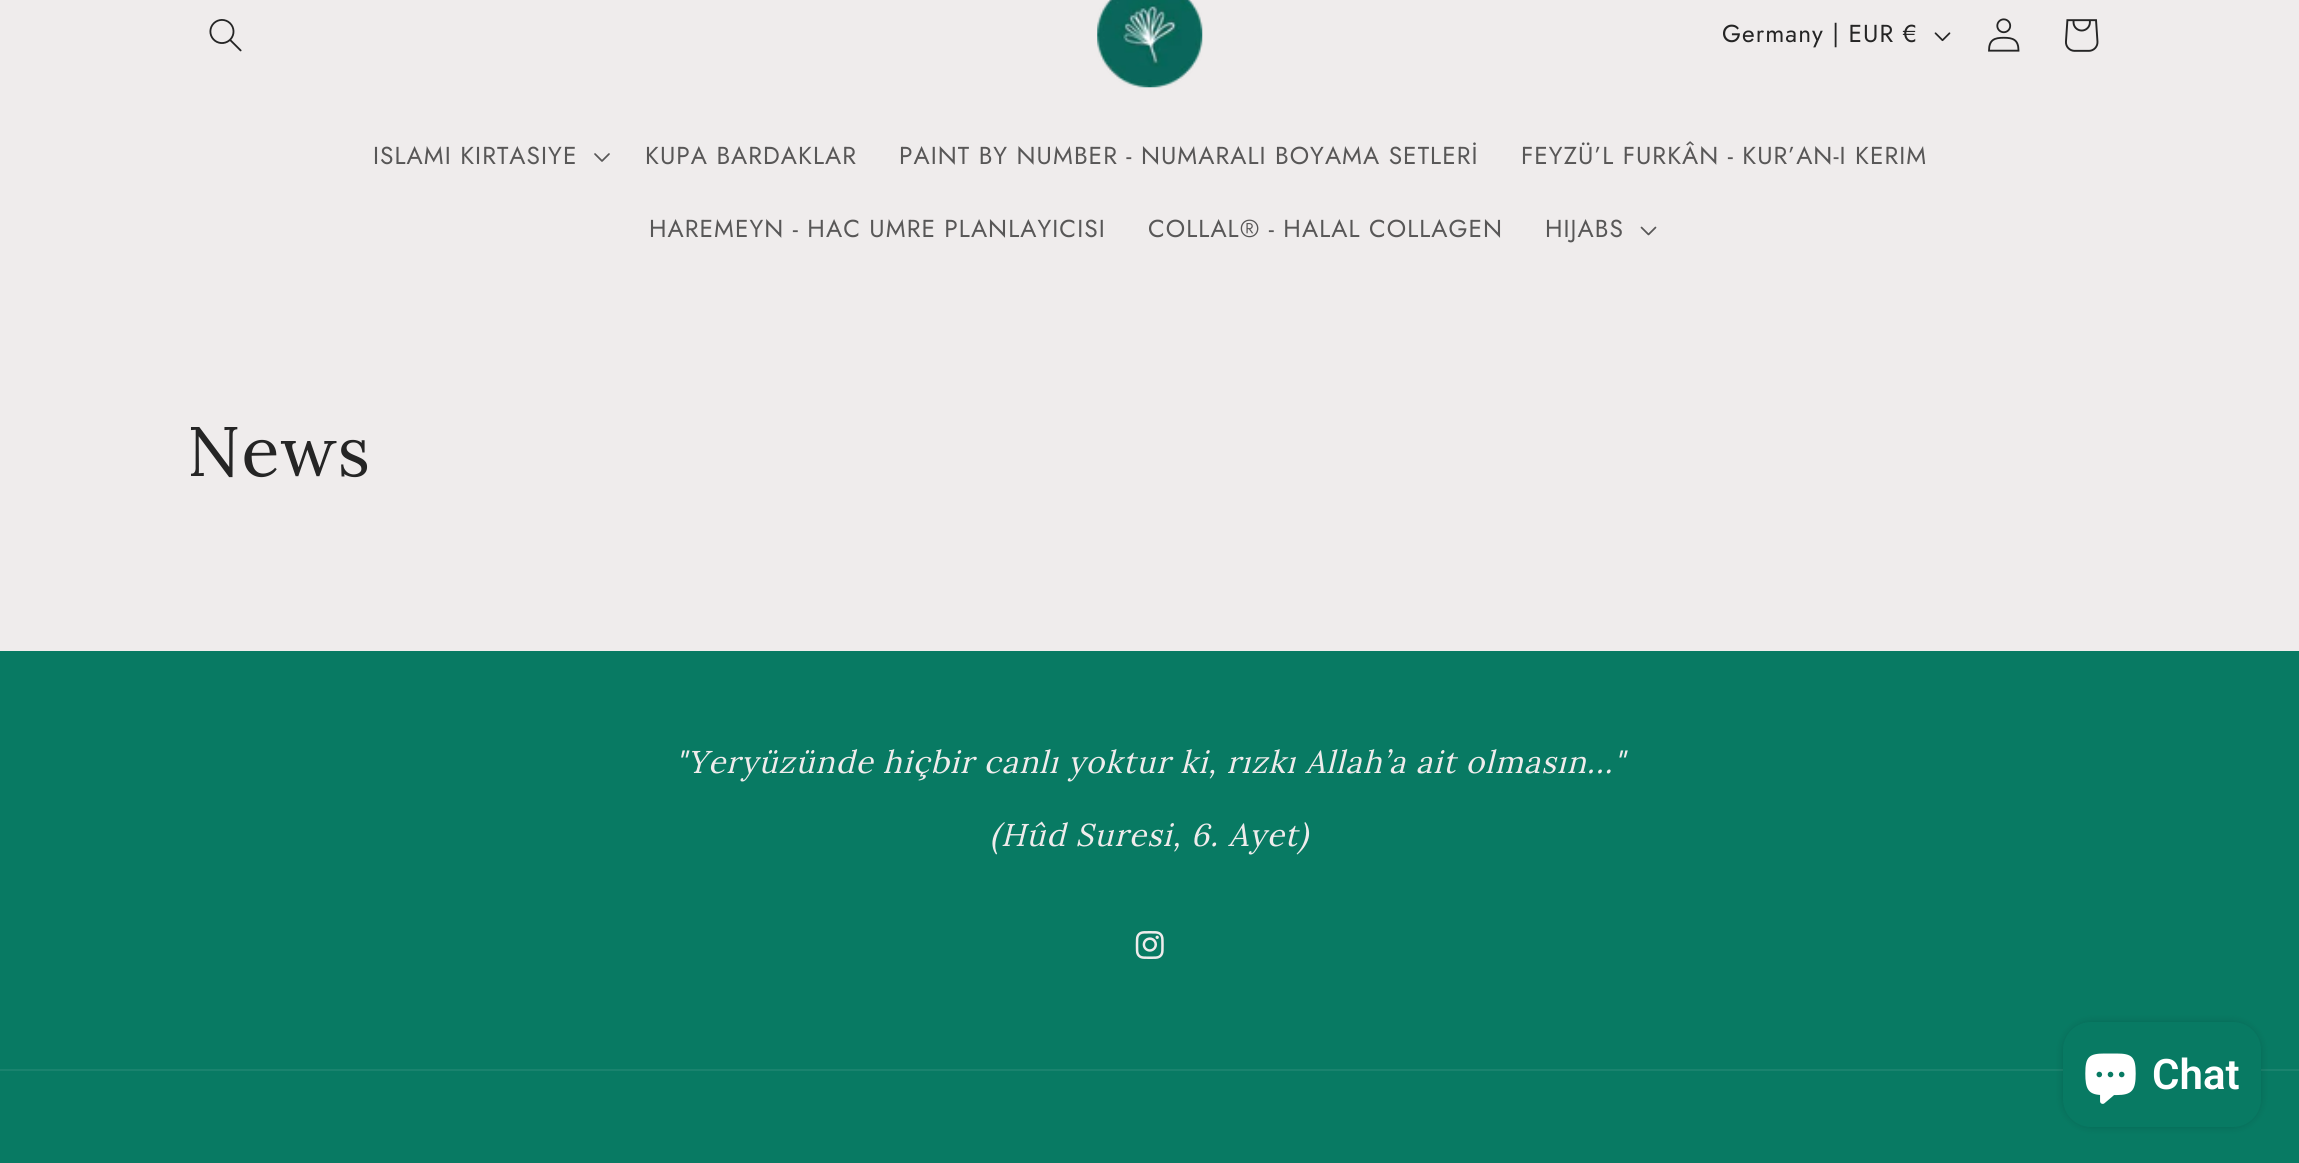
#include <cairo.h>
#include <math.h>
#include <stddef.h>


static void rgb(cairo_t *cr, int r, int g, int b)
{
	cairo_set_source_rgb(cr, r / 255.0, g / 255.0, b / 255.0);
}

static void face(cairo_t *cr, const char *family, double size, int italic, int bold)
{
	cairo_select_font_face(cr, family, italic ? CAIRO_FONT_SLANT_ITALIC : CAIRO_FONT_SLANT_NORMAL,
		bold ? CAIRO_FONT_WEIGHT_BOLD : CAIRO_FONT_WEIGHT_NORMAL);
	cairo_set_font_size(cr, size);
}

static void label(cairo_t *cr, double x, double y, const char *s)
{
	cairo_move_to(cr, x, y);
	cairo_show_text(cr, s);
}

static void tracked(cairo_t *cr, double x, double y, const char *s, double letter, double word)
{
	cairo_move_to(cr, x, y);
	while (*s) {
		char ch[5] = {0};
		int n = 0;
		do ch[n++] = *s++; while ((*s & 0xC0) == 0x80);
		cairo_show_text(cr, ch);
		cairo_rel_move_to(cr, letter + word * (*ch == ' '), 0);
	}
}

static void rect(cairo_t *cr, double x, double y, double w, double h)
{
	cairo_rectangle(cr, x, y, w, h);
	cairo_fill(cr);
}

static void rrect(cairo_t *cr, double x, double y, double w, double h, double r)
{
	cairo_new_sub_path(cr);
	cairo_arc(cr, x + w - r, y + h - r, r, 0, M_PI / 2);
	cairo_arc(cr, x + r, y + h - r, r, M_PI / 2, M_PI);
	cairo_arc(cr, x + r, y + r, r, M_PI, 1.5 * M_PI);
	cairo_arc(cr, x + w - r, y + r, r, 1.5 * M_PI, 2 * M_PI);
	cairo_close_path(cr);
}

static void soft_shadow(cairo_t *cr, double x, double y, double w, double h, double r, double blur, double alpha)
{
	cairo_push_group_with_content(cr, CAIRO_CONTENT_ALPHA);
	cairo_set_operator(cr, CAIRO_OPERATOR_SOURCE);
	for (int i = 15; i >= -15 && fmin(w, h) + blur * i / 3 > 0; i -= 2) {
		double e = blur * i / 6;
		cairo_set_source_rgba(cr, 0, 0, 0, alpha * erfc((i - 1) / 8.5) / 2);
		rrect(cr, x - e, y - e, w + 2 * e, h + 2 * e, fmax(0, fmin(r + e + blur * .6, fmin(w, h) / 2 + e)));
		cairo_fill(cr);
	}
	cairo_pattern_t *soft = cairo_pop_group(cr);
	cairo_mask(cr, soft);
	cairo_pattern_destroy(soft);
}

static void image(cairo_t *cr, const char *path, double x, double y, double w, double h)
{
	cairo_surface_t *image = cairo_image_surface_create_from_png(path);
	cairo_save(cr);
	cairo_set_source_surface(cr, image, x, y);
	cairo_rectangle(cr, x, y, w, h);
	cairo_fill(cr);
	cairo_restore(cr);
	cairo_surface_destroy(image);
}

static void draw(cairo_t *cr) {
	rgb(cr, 239, 236, 236);
	cairo_paint(cr);
	image(cr, "image0.png", 209, 19, 33, 33);
	image(cr, "image1.png", 1097, 0, 106, 88);
	face(cr, "Jost", 24.5, 0, 0);
	rgb(cr, 37, 37, 37);
	tracked(cr, 1722, 42, "Germany | EUR €", 1.05, 0);
	image(cr, "image2.png", 1934, 32, 17, 10);
	image(cr, "image3.png", 1988, 18, 32, 34);
	image(cr, "image4.png", 2065, 19, 34, 33);
	rgb(cr, 88, 87, 87);
	tracked(cr, 373, 164, "ISLAMI KIRTASIYE", 1.05, 0);
	image(cr, "image5.png", 594, 153, 16, 9);
	tracked(cr, 645, 164, "KUPA BARDAKLAR", 1.05, 0);
	tracked(cr, 899, 164, "PAINT BY NUMBER - NUMARALI BOYAMA SETLERİ", 1.05, 0);
	tracked(cr, 1521, 164, "FEYZÜ’L FURKÂN - KUR’AN-I KERIM", 1.05, 0);
	tracked(cr, 649, 237, "HAREMEYN - HAC UMRE PLANLAYICISI", 1.05, 0);
	tracked(cr, 1148, 237, "COLLAL® - HALAL COLLAGEN", 1.05, 0);
	tracked(cr, 1545, 237, "HIJABS", 1.05, 0);
	image(cr, "image6.png", 1640, 226, 17, 10);
	face(cr, "Lora", 70, 0, 0);
	rgb(cr, 37, 37, 37);
	tracked(cr, 187, 476, "News", 1.05, 0);
	rgb(cr, 8, 122, 99);
	rect(cr, 0, 651, 2299, 512);
	face(cr, "Lora", 31.5, 1, 0);
	rgb(cr, 239, 236, 236);
	tracked(cr, 675, 773, "\"Yeryüzünde hiçbir canlı yoktur ki, rızkı Allah’a ait olmasın...\"", 1.05, 0);
	tracked(cr, 990, 846, "(Hûd Suresi, 6. Ayet)", 1.05, 0);
	image(cr, "image7.png", 1135, 931, 29, 28);
	rgb(cr, 26, 131, 110);
	rect(cr, 0, 1069, 2299, 2);
	rgb(cr, 0, 0, 0);
	soft_shadow(cr, 2063, 1022, 198, 105, 28, 4.5, 0.15);
	rgb(cr, 8, 122, 99);
	rrect(cr, 2063, 1022, 198, 105, 28);
	cairo_fill(cr);
	image(cr, "image8.png", 2085, 1053, 51, 51);
	face(cr, "Roboto SemiBold", 42, 0, 0);
	rgb(cr, 255, 255, 255);
	label(cr, 2152, 1089, "Chat");
}

int main(void) {
	cairo_surface_t *surface = cairo_image_surface_create(CAIRO_FORMAT_RGB24, 2299, 1163);
	cairo_t *cr = cairo_create(surface);
	cairo_font_options_t *options = cairo_font_options_create();
	cairo_font_options_set_hint_metrics(options, CAIRO_HINT_METRICS_OFF);
	cairo_font_options_set_hint_style(options, CAIRO_HINT_STYLE_NONE);
	cairo_set_font_options(cr, options);
	cairo_set_miter_limit(cr, 4);
	draw(cr);
	cairo_surface_write_to_png(surface, "render.png");
	cairo_font_options_destroy(options);
	cairo_destroy(cr);
	cairo_surface_destroy(surface);
	return 0;
}
